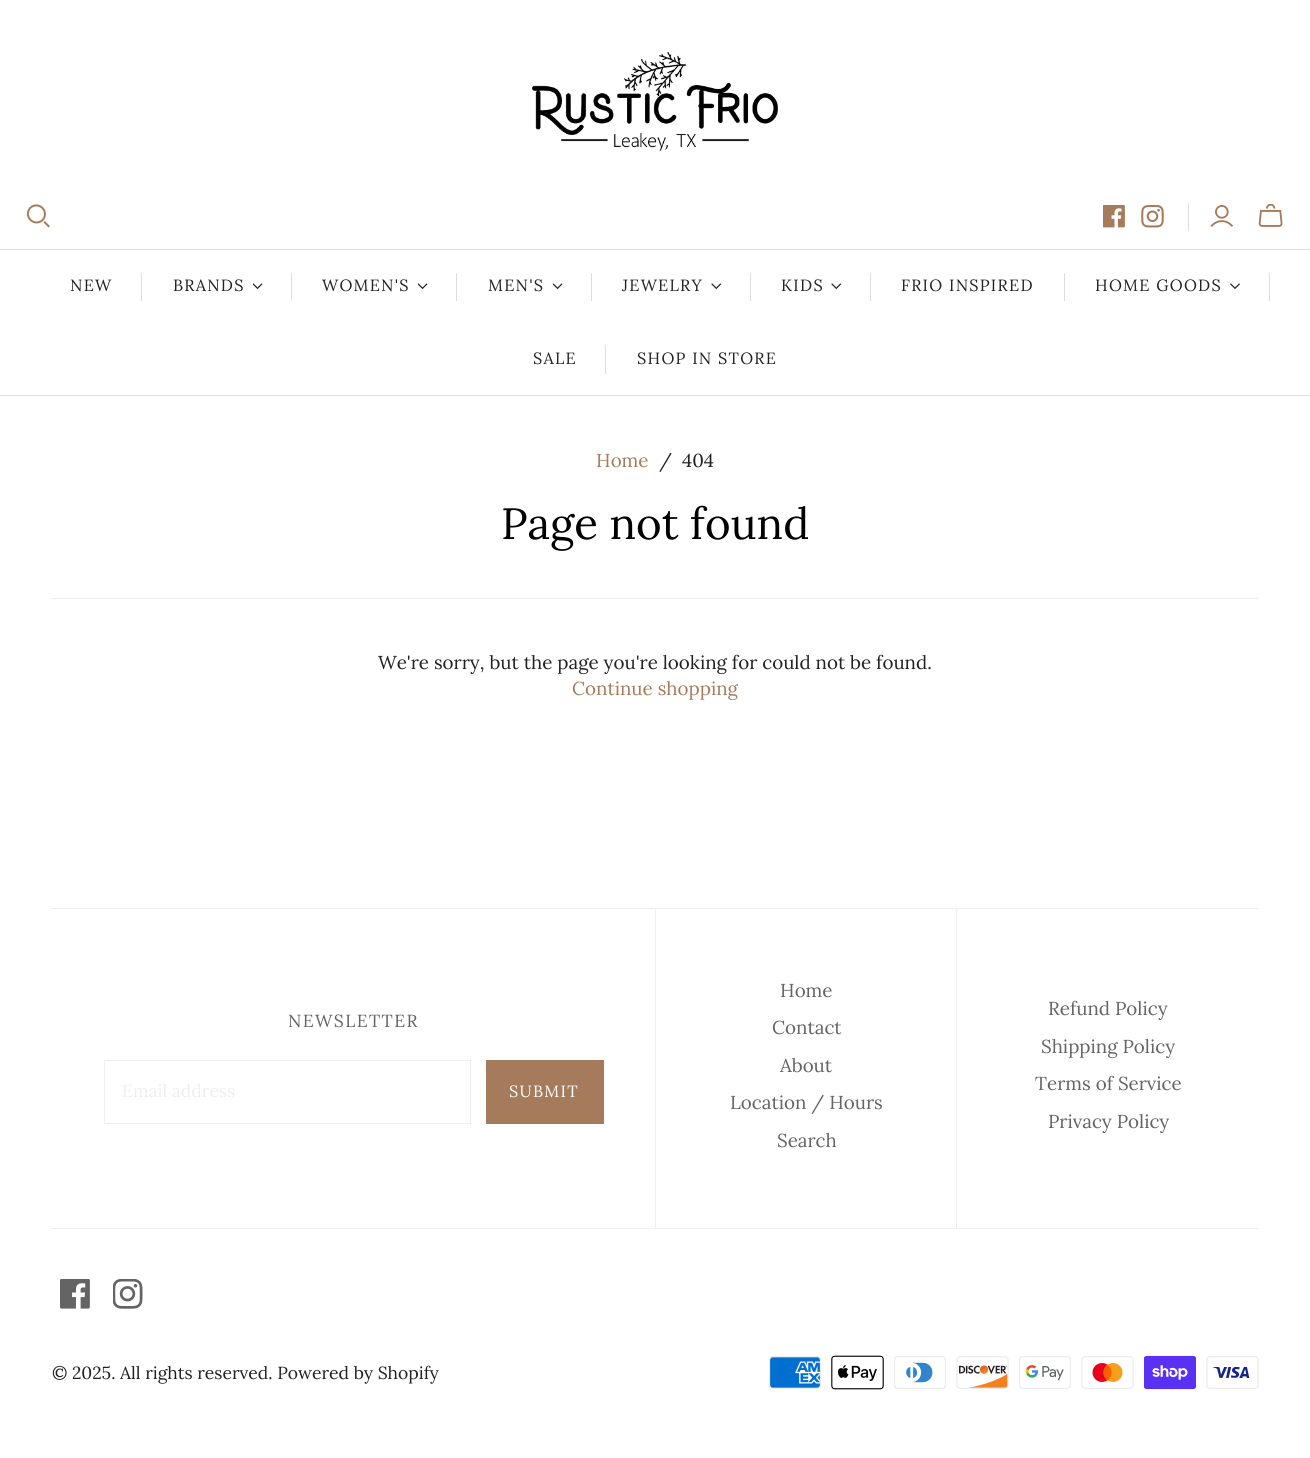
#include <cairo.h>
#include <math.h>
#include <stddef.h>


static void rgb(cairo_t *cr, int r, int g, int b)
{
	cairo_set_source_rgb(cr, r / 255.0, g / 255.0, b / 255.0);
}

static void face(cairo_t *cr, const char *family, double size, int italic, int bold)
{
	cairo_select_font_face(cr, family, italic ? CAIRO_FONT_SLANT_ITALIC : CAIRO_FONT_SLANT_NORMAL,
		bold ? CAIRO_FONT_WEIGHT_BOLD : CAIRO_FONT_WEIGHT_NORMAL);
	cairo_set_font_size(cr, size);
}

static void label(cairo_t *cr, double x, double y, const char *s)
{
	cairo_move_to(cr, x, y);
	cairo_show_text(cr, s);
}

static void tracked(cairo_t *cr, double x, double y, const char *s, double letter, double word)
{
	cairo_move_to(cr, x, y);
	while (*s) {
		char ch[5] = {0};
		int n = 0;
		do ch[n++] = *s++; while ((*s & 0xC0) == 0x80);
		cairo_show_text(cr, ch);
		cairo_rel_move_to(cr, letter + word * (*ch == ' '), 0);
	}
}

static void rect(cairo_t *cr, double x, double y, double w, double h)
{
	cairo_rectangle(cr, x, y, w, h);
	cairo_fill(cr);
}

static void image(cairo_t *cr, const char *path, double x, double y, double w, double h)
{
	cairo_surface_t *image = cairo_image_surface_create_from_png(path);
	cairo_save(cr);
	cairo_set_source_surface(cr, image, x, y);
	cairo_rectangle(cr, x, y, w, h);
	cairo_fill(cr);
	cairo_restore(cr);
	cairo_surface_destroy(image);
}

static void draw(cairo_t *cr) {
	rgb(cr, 255, 255, 255);
	cairo_paint(cr);
	image(cr, "image0.png", 532, 52, 246, 99);
	image(cr, "image1.png", 26, 204, 24, 24);
	image(cr, "image2.png", 1103, 205, 22, 23);
	image(cr, "image3.png", 1141, 205, 23, 23);
	rgb(cr, 221, 221, 221);
	rect(cr, 1188, 203, 1, 28);
	image(cr, "image4.png", 1210, 205, 24, 22);
	image(cr, "image5.png", 1258, 204, 25, 23);
	rect(cr, 0, 249, 1310, 1);
	rect(cr, 0, 395, 1310, 1);
	face(cr, "Lora", 16.25, 0, 0);
	rgb(cr, 34, 34, 34);
	tracked(cr, 70, 291, "NEW", 1.25, 0);
	rgb(cr, 221, 221, 221);
	rect(cr, 141, 273, 1, 28);
	rgb(cr, 34, 34, 34);
	tracked(cr, 173, 291, "BRANDS", 1.25, 0);
	image(cr, "image6.png", 253, 283, 10, 7);
	rgb(cr, 221, 221, 221);
	rect(cr, 291, 273, 1, 28);
	rgb(cr, 34, 34, 34);
	tracked(cr, 322, 291, "WOMEN'S", 1.25, 0);
	image(cr, "image6.png", 418, 283, 10, 7);
	rgb(cr, 221, 221, 221);
	rect(cr, 456, 273, 1, 28);
	rgb(cr, 34, 34, 34);
	tracked(cr, 488, 291, "MEN'S", 1.25, 0);
	image(cr, "image6.png", 553, 283, 10, 7);
	rgb(cr, 221, 221, 221);
	rect(cr, 591, 273, 1, 28);
	rgb(cr, 34, 34, 34);
	tracked(cr, 622, 291, "JEWELRY", 1.25, 0);
	image(cr, "image7.png", 711, 283, 10, 7);
	rgb(cr, 221, 221, 221);
	rect(cr, 750, 273, 1, 28);
	rgb(cr, 34, 34, 34);
	tracked(cr, 781, 291, "KIDS", 1.25, 0);
	image(cr, "image7.png", 831, 283, 10, 7);
	rgb(cr, 221, 221, 221);
	rect(cr, 870, 273, 1, 28);
	rgb(cr, 34, 34, 34);
	tracked(cr, 901, 291, "FRIO INSPIRED", 1.25, 0);
	rgb(cr, 221, 221, 221);
	rect(cr, 1064, 273, 1, 28);
	rgb(cr, 34, 34, 34);
	tracked(cr, 1095, 291, "HOME GOODS", 1.25, 0);
	image(cr, "image8.png", 1230, 283, 10, 7);
	rgb(cr, 221, 221, 221);
	rect(cr, 1269, 273, 1, 28);
	rgb(cr, 34, 34, 34);
	tracked(cr, 533, 364, "SALE", 1.25, 0);
	rgb(cr, 221, 221, 221);
	rect(cr, 605, 345, 1, 29);
	rgb(cr, 34, 34, 34);
	tracked(cr, 637, 364, "SHOP IN STORE", 1.25, 0);
	face(cr, "Lora", 18.75, 0, 0);
	rgb(cr, 166, 123, 91);
	label(cr, 596, 467, "Home");
	rgb(cr, 34, 34, 34);
	label(cr, 659, 467, "/");
	label(cr, 682, 467, "404");
	rgb(cr, 238, 238, 238);
	rect(cr, 51, 598, 1208, 1);
	face(cr, "Lora", 43.75, 0, 0);
	rgb(cr, 0, 0, 0);
	label(cr, 501, 539, "Page not found");
	face(cr, "Lora", 18.75, 0, 0);
	rgb(cr, 34, 34, 34);
	label(cr, 378, 669, "We're sorry, but the page you're looking for could not be found.");
	rgb(cr, 166, 123, 91);
	label(cr, 572, 695, "Continue shopping");
	rgb(cr, 238, 238, 238);
	rect(cr, 51, 908, 1208, 1);
	rect(cr, 51, 1228, 1208, 1);
	face(cr, "Lora", 17.5, 0, 0);
	rgb(cr, 100, 100, 100);
	tracked(cr, 288, 1027, "NEWSLETTER", 1.4, 0);
	cairo_rectangle(cr, 104.5, 1060.5, 366, 63);
	rgb(cr, 238, 238, 238);
	cairo_set_line_width(cr, 1);
	cairo_stroke(cr);
	label(cr, 122, 1097, "Email address");
	rgb(cr, 166, 123, 91);
	rect(cr, 486, 1060, 118, 64);
	face(cr, "Lora", 16.25, 0, 0);
	rgb(cr, 255, 255, 255);
	tracked(cr, 509, 1097, "SUBMIT", 1.25, 0);
	rgb(cr, 238, 238, 238);
	rect(cr, 655, 909, 1, 319);
	face(cr, "Lora", 18.75, 0, 0);
	rgb(cr, 100, 100, 100);
	label(cr, 780, 997, "Home");
	label(cr, 772, 1034, "Contact");
	label(cr, 780, 1072, "About");
	label(cr, 730, 1109, "Location / Hours");
	label(cr, 777, 1147, "Search");
	rgb(cr, 238, 238, 238);
	rect(cr, 956, 909, 1, 319);
	rgb(cr, 100, 100, 100);
	label(cr, 1048, 1015, "Refund Policy");
	label(cr, 1041, 1053, "Shipping Policy");
	label(cr, 1035, 1090, "Terms of Service");
	label(cr, 1048, 1128, "Privacy Policy");
	image(cr, "image9.png", 60, 1279, 30, 30);
	image(cr, "image10.png", 113, 1279, 30, 30);
	face(cr, "Lora", 17.5, 0, 0);
	rgb(cr, 34, 34, 34);
	label(cr, 52, 1379, "© 2025. All rights reserved. Powered by Shopify");
	image(cr, "image11.png", 769, 1356, 52, 33);
	image(cr, "image12.png", 831, 1355, 53, 35);
	image(cr, "image13.png", 894, 1356, 52, 33);
	image(cr, "image14.png", 956, 1356, 53, 33);
	image(cr, "image15.png", 1019, 1356, 52, 33);
	image(cr, "image16.png", 1081, 1356, 53, 33);
	image(cr, "image17.png", 1144, 1355, 52, 35);
	image(cr, "image18.png", 1206, 1356, 53, 33);
}

int main(void) {
	cairo_surface_t *surface = cairo_image_surface_create(CAIRO_FORMAT_RGB24, 1310, 1458);
	cairo_t *cr = cairo_create(surface);
	cairo_font_options_t *options = cairo_font_options_create();
	cairo_font_options_set_hint_metrics(options, CAIRO_HINT_METRICS_OFF);
	cairo_font_options_set_hint_style(options, CAIRO_HINT_STYLE_NONE);
	cairo_set_font_options(cr, options);
	cairo_set_miter_limit(cr, 4);
	draw(cr);
	cairo_surface_write_to_png(surface, "render.png");
	cairo_font_options_destroy(options);
	cairo_destroy(cr);
	cairo_surface_destroy(surface);
	return 0;
}
